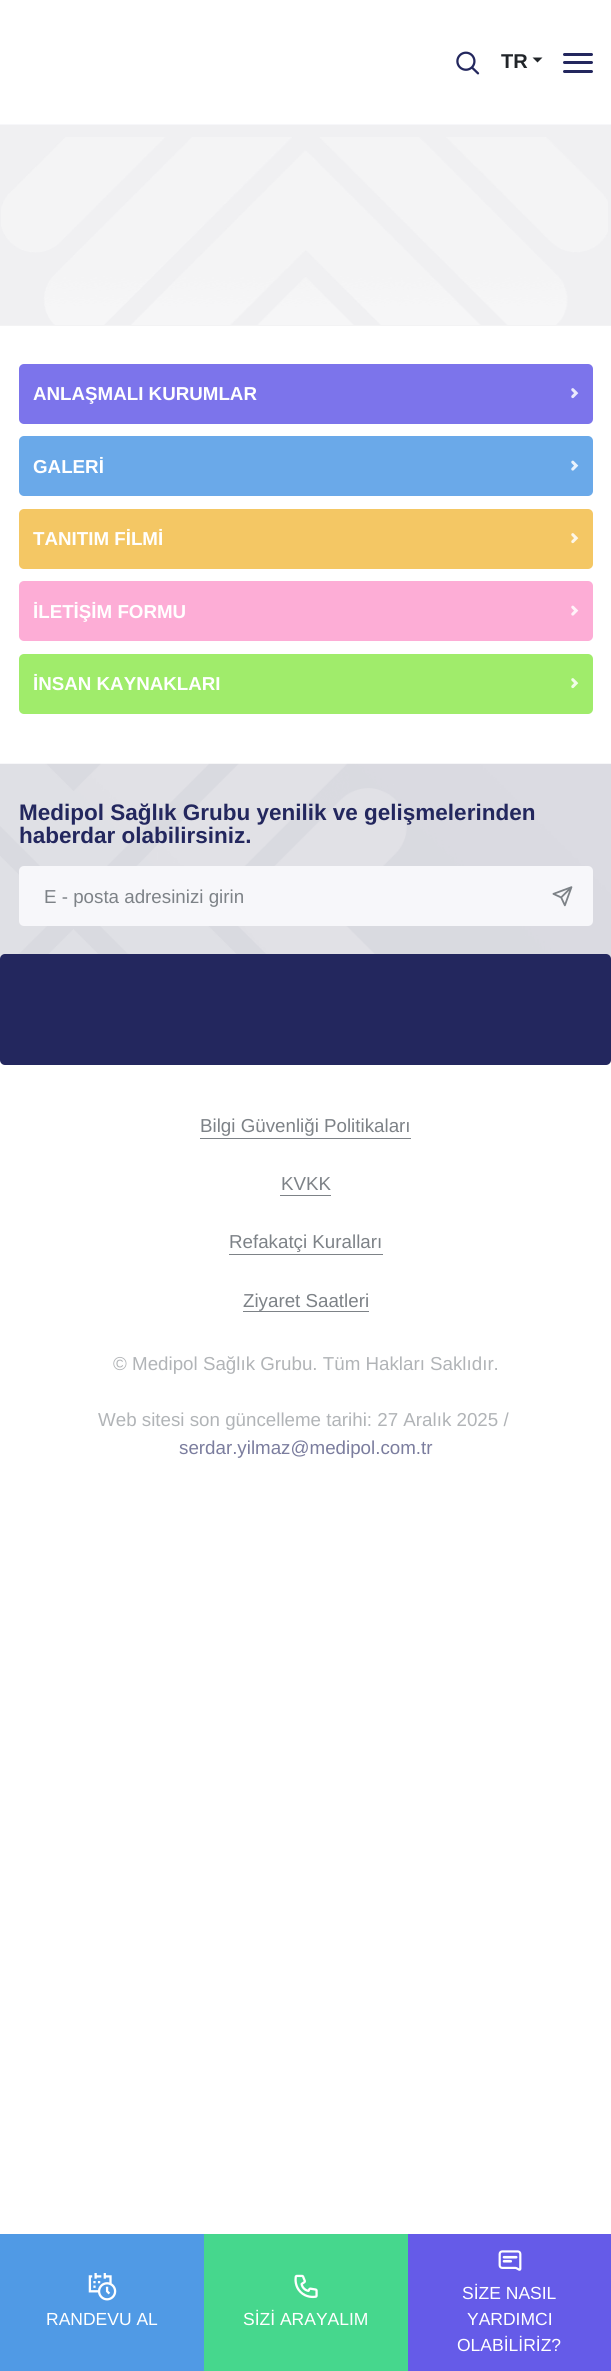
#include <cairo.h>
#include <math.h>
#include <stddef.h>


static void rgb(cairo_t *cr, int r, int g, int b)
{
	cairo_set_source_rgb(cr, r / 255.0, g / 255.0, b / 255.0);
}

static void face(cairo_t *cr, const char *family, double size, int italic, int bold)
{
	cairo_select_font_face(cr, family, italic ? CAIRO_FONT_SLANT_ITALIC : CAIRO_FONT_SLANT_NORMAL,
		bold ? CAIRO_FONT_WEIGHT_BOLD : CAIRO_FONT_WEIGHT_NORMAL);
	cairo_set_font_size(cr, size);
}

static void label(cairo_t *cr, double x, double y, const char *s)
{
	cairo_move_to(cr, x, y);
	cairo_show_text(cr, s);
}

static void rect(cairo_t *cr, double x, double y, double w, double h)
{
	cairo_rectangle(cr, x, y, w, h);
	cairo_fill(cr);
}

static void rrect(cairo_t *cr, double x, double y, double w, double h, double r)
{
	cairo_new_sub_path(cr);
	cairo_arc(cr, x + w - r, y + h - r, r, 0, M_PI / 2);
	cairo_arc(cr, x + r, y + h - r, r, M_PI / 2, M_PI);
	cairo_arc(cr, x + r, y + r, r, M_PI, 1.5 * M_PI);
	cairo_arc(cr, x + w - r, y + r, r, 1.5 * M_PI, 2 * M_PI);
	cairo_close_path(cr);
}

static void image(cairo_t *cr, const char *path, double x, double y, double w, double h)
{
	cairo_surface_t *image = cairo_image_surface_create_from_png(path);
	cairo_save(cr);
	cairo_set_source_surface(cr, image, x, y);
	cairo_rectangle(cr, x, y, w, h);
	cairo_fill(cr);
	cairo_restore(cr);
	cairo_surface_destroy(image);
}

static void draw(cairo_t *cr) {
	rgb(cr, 255, 255, 255);
	cairo_paint(cr);
	rgb(cr, 247, 247, 250);
	rect(cr, 0, 124, 611, 1);
	image(cr, "image0.png", 456, 51, 24, 24);
	face(cr, "Liberation Sans", 20, 0, 1);
	rgb(cr, 33, 37, 41);
	label(cr, 501, 68, "TR");
	cairo_new_path(cr);
	cairo_move_to(cr, 532.5, 57.5);
	cairo_line_to(cr, 542.5, 57.5);
	cairo_line_to(cr, 537.5, 62.5);
	cairo_close_path(cr);
	cairo_fill(cr);
	rgb(cr, 35, 39, 94);
	rrect(cr, 563, 53, 30, 3, 1.5);
	cairo_fill(cr);
	rrect(cr, 563, 61, 30, 3, 1.5);
	cairo_fill(cr);
	rrect(cr, 563, 70, 30, 3, 1.5);
	cairo_fill(cr);
	rgb(cr, 240, 240, 242);
	rect(cr, 0, 125, 611, 200);
	image(cr, "image1.png", 1, 137, 607, 188);
	rgb(cr, 243, 243, 244);
	rect(cr, 0, 325, 611, 1);
	rgb(cr, 124, 116, 235);
	rrect(cr, 19, 364, 574, 60, 5);
	cairo_fill(cr);
	face(cr, "Liberation Sans", 18.75, 0, 1);
	rgb(cr, 255, 255, 255);
	label(cr, 33, 400, "ANLAŞMALI KURUMLAR");
	image(cr, "image2.png", 571, 388, 8, 11);
	rgb(cr, 106, 169, 233);
	rrect(cr, 19, 436, 574, 60, 5);
	cairo_fill(cr);
	rgb(cr, 255, 255, 255);
	label(cr, 33, 473, "GALERİ");
	image(cr, "image3.png", 571, 460, 8, 11);
	rgb(cr, 244, 199, 100);
	rrect(cr, 19, 509, 574, 60, 5);
	cairo_fill(cr);
	rgb(cr, 255, 255, 255);
	label(cr, 33, 545, "TANITIM FİLMİ");
	image(cr, "image4.png", 571, 533, 8, 11);
	rgb(cr, 253, 173, 214);
	rrect(cr, 19, 581, 574, 60, 5);
	cairo_fill(cr);
	rgb(cr, 255, 255, 255);
	label(cr, 33, 618, "İLETİŞİM FORMU");
	image(cr, "image5.png", 571, 605, 8, 11);
	rgb(cr, 160, 236, 107);
	rrect(cr, 19, 654, 574, 60, 5);
	cairo_fill(cr);
	rgb(cr, 255, 255, 255);
	label(cr, 33, 690, "İNSAN KAYNAKLARI");
	image(cr, "image6.png", 571, 678, 8, 11);
	image(cr, "image7.png", 0, 763, 611, 196);
	face(cr, "Liberation Sans", 22.5, 0, 1);
	rgb(cr, 35, 39, 94);
	label(cr, 19, 820, "Medipol Sağlık Grubu yenilik ve gelişmelerinden");
	label(cr, 19, 843, "haberdar olabilirsiniz.");
	rgb(cr, 247, 247, 250);
	rrect(cr, 19, 866, 574, 60, 5);
	cairo_fill(cr);
	face(cr, "Liberation Sans", 18.75, 0, 0);
	rgb(cr, 125, 130, 135);
	label(cr, 44, 903, "E - posta adresinizi girin");
	image(cr, "image8.png", 552, 886, 21, 21);
	rgb(cr, 35, 39, 94);
	rrect(cr, 0, 954, 611, 111, 5);
	cairo_fill(cr);
	rgb(cr, 125, 130, 135);
	label(cr, 200, 1132, "Bilgi Güvenliği Politikaları");
	rect(cr, 200, 1138, 211, 1);
	label(cr, 281, 1190, "KVKK");
	rect(cr, 280, 1195, 51, 1);
	label(cr, 229, 1248, "Refakatçi Kuralları");
	rect(cr, 229, 1254, 154, 1);
	label(cr, 243, 1307, "Ziyaret Saatleri");
	rect(cr, 243, 1311, 126, 1);
	rgb(cr, 177, 180, 183);
	label(cr, 113, 1370, "© Medipol Sağlık Grubu. Tüm Hakları Saklıdır.");
	label(cr, 98, 1426, "Web sitesi son güncelleme tarihi: 27 Aralık 2025 /");
	rgb(cr, 123, 125, 158);
	label(cr, 179, 1454, "serdar.yilmaz@medipol.com.tr");
	rgb(cr, 80, 154, 229);
	rect(cr, 0, 2234, 204, 137);
	image(cr, "image9.png", 88, 2273, 29, 28);
	face(cr, "Liberation Sans", 17.5, 0, 0);
	rgb(cr, 255, 255, 255);
	label(cr, 46, 2325, "RANDEVU AL");
	rgb(cr, 70, 215, 141);
	rect(cr, 204, 2234, 204, 137);
	image(cr, "image10.png", 294, 2274, 24, 25);
	rgb(cr, 255, 255, 255);
	label(cr, 243, 2325, "SİZİ ARAYALIM");
	rgb(cr, 101, 91, 232);
	rect(cr, 408, 2234, 203, 137);
	image(cr, "image11.png", 498, 2250, 24, 21);
	rgb(cr, 255, 255, 255);
	label(cr, 462, 2299, "SİZE NASIL");
	label(cr, 467, 2325, "YARDIMCI");
	label(cr, 457, 2351, "OLABİLİRİZ?");
}

int main(void) {
	cairo_surface_t *surface = cairo_image_surface_create(CAIRO_FORMAT_RGB24, 611, 2371);
	cairo_t *cr = cairo_create(surface);
	cairo_font_options_t *options = cairo_font_options_create();
	cairo_font_options_set_hint_metrics(options, CAIRO_HINT_METRICS_OFF);
	cairo_font_options_set_hint_style(options, CAIRO_HINT_STYLE_NONE);
	cairo_set_font_options(cr, options);
	cairo_set_miter_limit(cr, 4);
	draw(cr);
	cairo_surface_write_to_png(surface, "render.png");
	cairo_font_options_destroy(options);
	cairo_destroy(cr);
	cairo_surface_destroy(surface);
	return 0;
}
